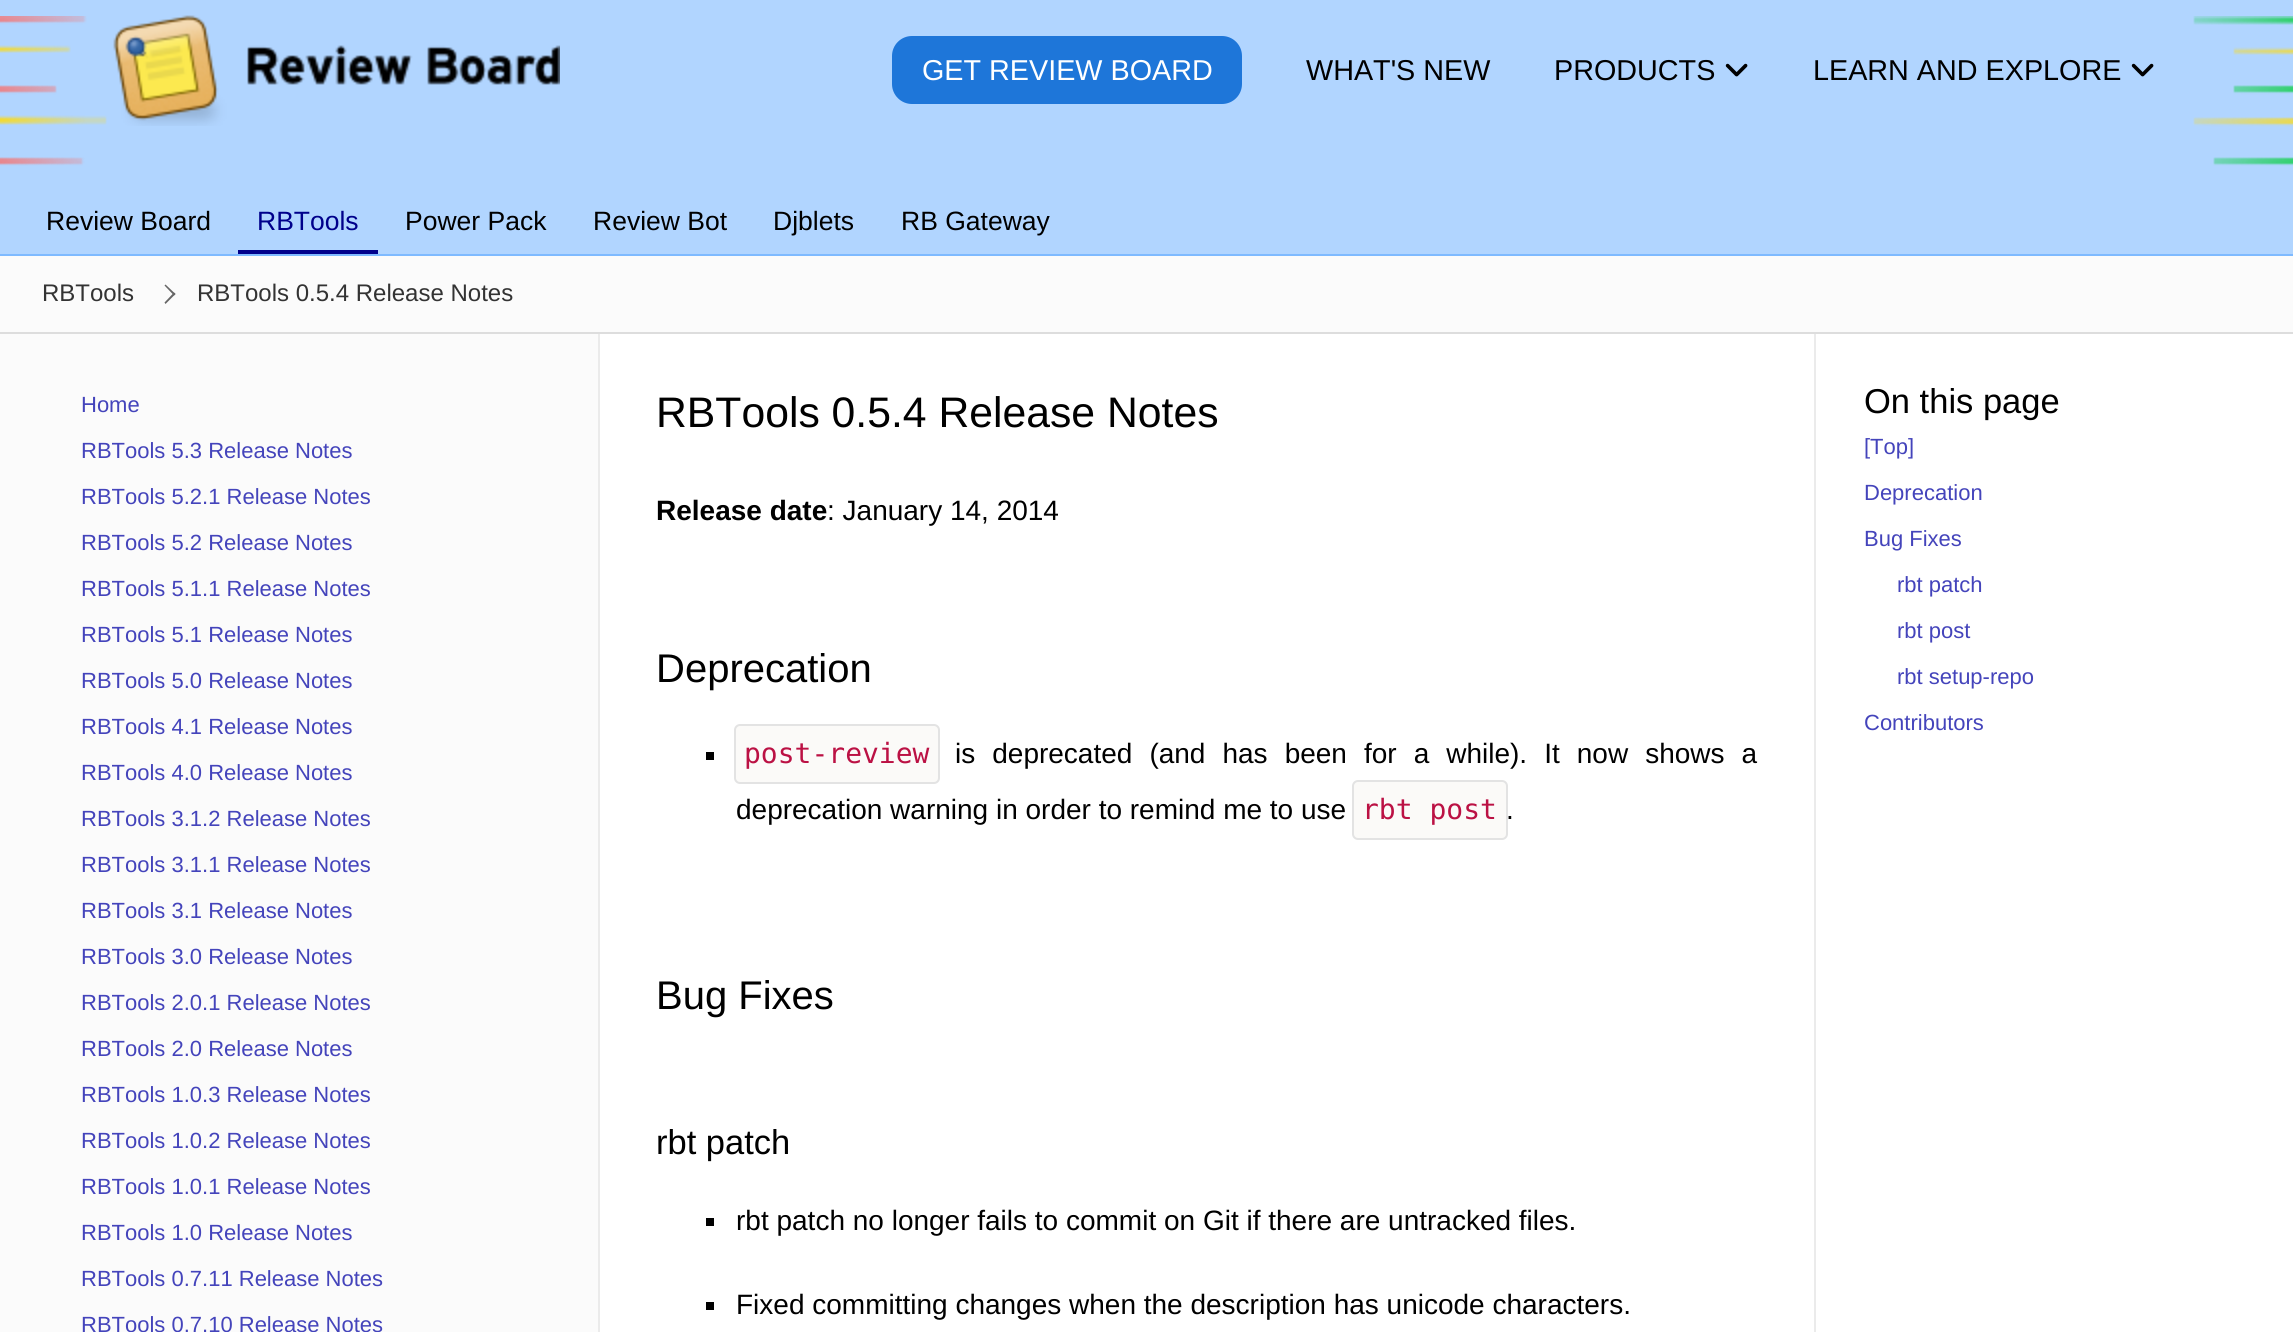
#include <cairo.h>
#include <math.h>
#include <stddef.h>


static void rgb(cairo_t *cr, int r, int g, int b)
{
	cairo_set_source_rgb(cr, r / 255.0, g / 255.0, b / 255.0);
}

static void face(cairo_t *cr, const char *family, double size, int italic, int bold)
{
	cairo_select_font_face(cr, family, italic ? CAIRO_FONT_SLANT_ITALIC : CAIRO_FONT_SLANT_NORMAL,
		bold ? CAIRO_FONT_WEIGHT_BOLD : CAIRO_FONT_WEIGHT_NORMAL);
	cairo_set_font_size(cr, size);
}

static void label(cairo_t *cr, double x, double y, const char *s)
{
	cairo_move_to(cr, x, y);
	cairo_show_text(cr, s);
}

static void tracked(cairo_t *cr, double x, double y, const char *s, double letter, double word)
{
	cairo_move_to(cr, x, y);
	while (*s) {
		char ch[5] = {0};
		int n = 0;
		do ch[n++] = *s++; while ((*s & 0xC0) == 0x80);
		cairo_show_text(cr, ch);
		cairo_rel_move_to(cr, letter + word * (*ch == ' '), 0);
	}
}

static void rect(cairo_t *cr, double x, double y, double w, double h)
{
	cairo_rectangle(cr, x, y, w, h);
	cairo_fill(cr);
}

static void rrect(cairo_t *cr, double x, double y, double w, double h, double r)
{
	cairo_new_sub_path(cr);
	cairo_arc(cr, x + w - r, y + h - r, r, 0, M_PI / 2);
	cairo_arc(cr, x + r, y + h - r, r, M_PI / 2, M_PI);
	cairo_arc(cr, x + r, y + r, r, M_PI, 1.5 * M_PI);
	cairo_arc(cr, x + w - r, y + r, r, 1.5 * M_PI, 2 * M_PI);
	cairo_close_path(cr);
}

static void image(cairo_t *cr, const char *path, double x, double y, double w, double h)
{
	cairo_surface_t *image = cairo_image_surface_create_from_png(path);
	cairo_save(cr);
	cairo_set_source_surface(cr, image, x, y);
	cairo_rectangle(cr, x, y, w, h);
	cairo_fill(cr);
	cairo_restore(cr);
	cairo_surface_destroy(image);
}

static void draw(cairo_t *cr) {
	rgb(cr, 255, 255, 255);
	cairo_paint(cr);
	rgb(cr, 177, 213, 255);
	rect(cr, 0, 0, 2293, 254);
	image(cr, "image0.png", 0, 16, 107, 150);
	image(cr, "image1.png", 113, 15, 447, 111);
	rgb(cr, 30, 118, 217);
	rrect(cr, 892, 36, 350, 68, 20);
	cairo_fill(cr);
	face(cr, "Liberation Sans", 28.75, 0, 0);
	rgb(cr, 255, 255, 255);
	label(cr, 922, 80, "GET REVIEW BOARD");
	rgb(cr, 0, 0, 0);
	label(cr, 1306, 80, "WHAT'S NEW");
	label(cr, 1554, 80, "PRODUCTS");
	image(cr, "image2.png", 1725, 63, 23, 14);
	label(cr, 1813, 80, "LEARN AND EXPLORE");
	image(cr, "image2.png", 2131, 63, 23, 14);
	image(cr, "image3.png", 2193, 16, 100, 150);
	rgb(cr, 126, 186, 255);
	rect(cr, 0, 254, 2293, 2);
	face(cr, "Liberation Sans", 26.5, 0, 0);
	rgb(cr, 0, 0, 0);
	label(cr, 46, 230, "Review Board");
	rgb(cr, 0, 0, 139);
	rect(cr, 238, 250, 140, 4);
	label(cr, 257, 230, "RBTools");
	rgb(cr, 0, 0, 0);
	label(cr, 405, 230, "Power Pack");
	label(cr, 593, 230, "Review Bot");
	label(cr, 773, 230, "Djblets");
	label(cr, 901, 230, "RB Gateway");
	rgb(cr, 251, 251, 251);
	rect(cr, 0, 256, 2293, 76);
	rgb(cr, 221, 221, 221);
	rect(cr, 0, 332, 2293, 2);
	face(cr, "Liberation Sans", 24, 0, 0);
	rgb(cr, 51, 51, 51);
	label(cr, 42, 301, "RBTools");
	rgb(cr, 102, 102, 102);
	cairo_new_path(cr);
	cairo_move_to(cr, 165.5, 284.5);
	cairo_line_to(cr, 175.5, 294);
	cairo_line_to(cr, 174, 295.5);
	cairo_line_to(cr, 164.5, 285.5);
	cairo_close_path(cr);
	cairo_fill(cr);
	cairo_new_path(cr);
	cairo_move_to(cr, 174, 292.5);
	cairo_line_to(cr, 175.5, 294);
	cairo_line_to(cr, 165.5, 304);
	cairo_line_to(cr, 164.5, 302.5);
	cairo_close_path(cr);
	cairo_fill(cr);
	rgb(cr, 51, 51, 51);
	label(cr, 197, 301, "RBTools 0.5.4 Release Notes");
	rgb(cr, 251, 251, 251);
	rect(cr, 0, 334, 598, 998);
	rgb(cr, 235, 235, 235);
	rect(cr, 598, 334, 2, 998);
	face(cr, "Liberation Sans", 22, 0, 0);
	rgb(cr, 68, 68, 187);
	label(cr, 81, 412, "Home");
	label(cr, 81, 458, "RBTools 5.3 Release Notes");
	label(cr, 81, 504, "RBTools 5.2.1 Release Notes");
	label(cr, 81, 550, "RBTools 5.2 Release Notes");
	label(cr, 81, 596, "RBTools 5.1.1 Release Notes");
	label(cr, 81, 642, "RBTools 5.1 Release Notes");
	label(cr, 81, 688, "RBTools 5.0 Release Notes");
	label(cr, 81, 734, "RBTools 4.1 Release Notes");
	label(cr, 81, 780, "RBTools 4.0 Release Notes");
	label(cr, 81, 826, "RBTools 3.1.2 Release Notes");
	label(cr, 81, 872, "RBTools 3.1.1 Release Notes");
	label(cr, 81, 918, "RBTools 3.1 Release Notes");
	label(cr, 81, 964, "RBTools 3.0 Release Notes");
	label(cr, 81, 1010, "RBTools 2.0.1 Release Notes");
	label(cr, 81, 1056, "RBTools 2.0 Release Notes");
	label(cr, 81, 1102, "RBTools 1.0.3 Release Notes");
	label(cr, 81, 1148, "RBTools 1.0.2 Release Notes");
	label(cr, 81, 1194, "RBTools 1.0.1 Release Notes");
	label(cr, 81, 1240, "RBTools 1.0 Release Notes");
	label(cr, 81, 1286, "RBTools 0.7.11 Release Notes");
	label(cr, 81, 1332, "RBTools 0.7.10 Release Notes");
	face(cr, "Liberation Sans", 42.7, 0, 0);
	rgb(cr, 0, 0, 0);
	label(cr, 656, 427, "RBTools 0.5.4 Release Notes");
	face(cr, "Liberation Sans", 28, 0, 1);
	label(cr, 656, 520, "Release date");
	face(cr, "Liberation Sans", 28, 0, 0);
	label(cr, 827, 520, ": January 14, 2014");
	face(cr, "Liberation Sans", 40, 0, 0);
	label(cr, 656, 682, "Deprecation");
	rect(cr, 706, 752, 8, 8);
	rgb(cr, 251, 250, 248);
	rrect(cr, 735, 725, 204, 58, 5);
	cairo_fill_preserve(cr);
	rgb(cr, 227, 227, 227);
	cairo_stroke(cr);
	face(cr, "DejaVu Sans Mono", 28, 0, 0);
	rgb(cr, 187, 17, 68);
	label(cr, 744, 763, "post-review");
	face(cr, "Liberation Sans", 28, 0, 0);
	rgb(cr, 0, 0, 0);
	tracked(cr, 955, 763, "is deprecated (and has been for a while). It now shows a", 0, 9.25);
	label(cr, 736, 819, "deprecation warning in order to remind me to use");
	rgb(cr, 251, 250, 248);
	rrect(cr, 1353, 781, 154, 58, 5);
	cairo_fill_preserve(cr);
	rgb(cr, 227, 227, 227);
	cairo_stroke(cr);
	face(cr, "DejaVu Sans Mono", 28, 0, 0);
	rgb(cr, 187, 17, 68);
	label(cr, 1362, 819, "rbt post");
	face(cr, "Liberation Sans", 28, 0, 0);
	rgb(cr, 0, 0, 0);
	label(cr, 1506, 819, ".");
	face(cr, "Liberation Sans", 40, 0, 0);
	label(cr, 656, 1009, "Bug Fixes");
	face(cr, "Liberation Sans", 34.5, 0, 0);
	label(cr, 656, 1154, "rbt patch");
	rect(cr, 706, 1218, 8, 8);
	face(cr, "Liberation Sans", 28, 0, 0);
	label(cr, 736, 1230, "rbt patch no longer fails to commit on Git if there are untracked files.");
	rect(cr, 706, 1302, 8, 8);
	label(cr, 736, 1314, "Fixed committing changes when the description has unicode characters.");
	rgb(cr, 235, 235, 235);
	rect(cr, 1814, 334, 2, 998);
	face(cr, "Liberation Sans", 34.5, 0, 0);
	rgb(cr, 0, 0, 0);
	label(cr, 1864, 413, "On this page");
	face(cr, "Liberation Sans", 22, 0, 0);
	rgb(cr, 68, 68, 187);
	label(cr, 1864, 454, "[Top]");
	label(cr, 1864, 500, "Deprecation");
	label(cr, 1864, 546, "Bug Fixes");
	label(cr, 1897, 592, "rbt patch");
	label(cr, 1897, 638, "rbt post");
	label(cr, 1897, 684, "rbt setup-repo");
	label(cr, 1864, 730, "Contributors");
}

int main(void) {
	cairo_surface_t *surface = cairo_image_surface_create(CAIRO_FORMAT_RGB24, 2293, 1332);
	cairo_t *cr = cairo_create(surface);
	cairo_font_options_t *options = cairo_font_options_create();
	cairo_font_options_set_hint_metrics(options, CAIRO_HINT_METRICS_OFF);
	cairo_font_options_set_hint_style(options, CAIRO_HINT_STYLE_NONE);
	cairo_set_font_options(cr, options);
	cairo_set_miter_limit(cr, 4);
	draw(cr);
	cairo_surface_write_to_png(surface, "render.png");
	cairo_font_options_destroy(options);
	cairo_destroy(cr);
	cairo_surface_destroy(surface);
	return 0;
}
